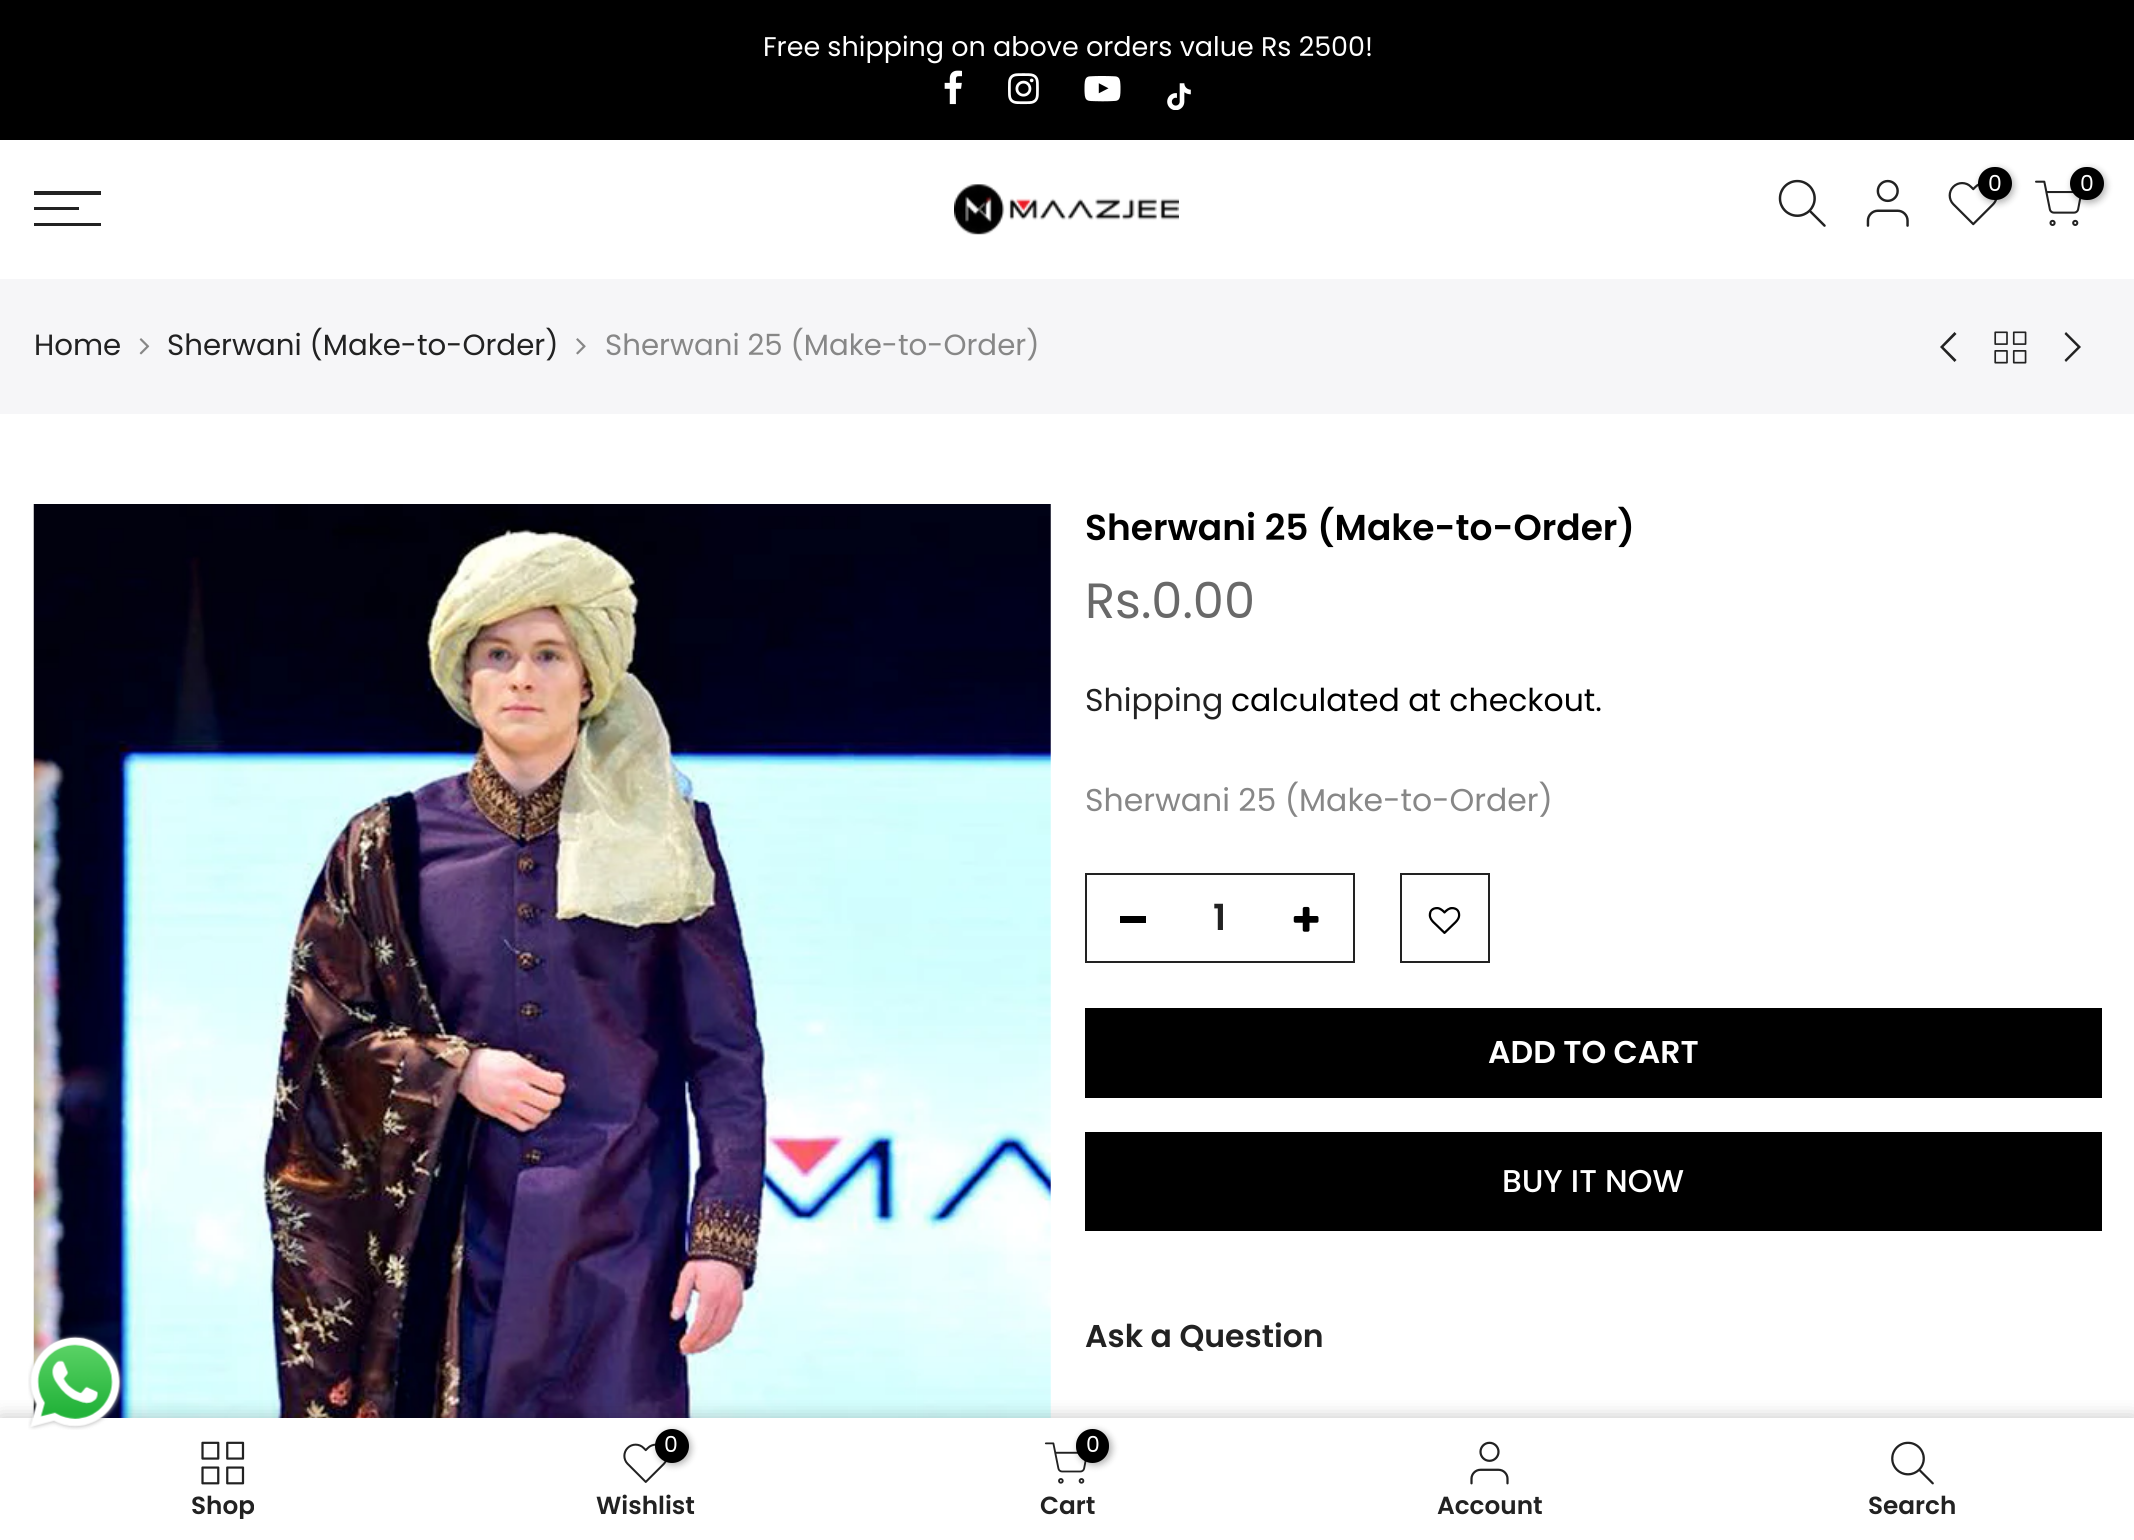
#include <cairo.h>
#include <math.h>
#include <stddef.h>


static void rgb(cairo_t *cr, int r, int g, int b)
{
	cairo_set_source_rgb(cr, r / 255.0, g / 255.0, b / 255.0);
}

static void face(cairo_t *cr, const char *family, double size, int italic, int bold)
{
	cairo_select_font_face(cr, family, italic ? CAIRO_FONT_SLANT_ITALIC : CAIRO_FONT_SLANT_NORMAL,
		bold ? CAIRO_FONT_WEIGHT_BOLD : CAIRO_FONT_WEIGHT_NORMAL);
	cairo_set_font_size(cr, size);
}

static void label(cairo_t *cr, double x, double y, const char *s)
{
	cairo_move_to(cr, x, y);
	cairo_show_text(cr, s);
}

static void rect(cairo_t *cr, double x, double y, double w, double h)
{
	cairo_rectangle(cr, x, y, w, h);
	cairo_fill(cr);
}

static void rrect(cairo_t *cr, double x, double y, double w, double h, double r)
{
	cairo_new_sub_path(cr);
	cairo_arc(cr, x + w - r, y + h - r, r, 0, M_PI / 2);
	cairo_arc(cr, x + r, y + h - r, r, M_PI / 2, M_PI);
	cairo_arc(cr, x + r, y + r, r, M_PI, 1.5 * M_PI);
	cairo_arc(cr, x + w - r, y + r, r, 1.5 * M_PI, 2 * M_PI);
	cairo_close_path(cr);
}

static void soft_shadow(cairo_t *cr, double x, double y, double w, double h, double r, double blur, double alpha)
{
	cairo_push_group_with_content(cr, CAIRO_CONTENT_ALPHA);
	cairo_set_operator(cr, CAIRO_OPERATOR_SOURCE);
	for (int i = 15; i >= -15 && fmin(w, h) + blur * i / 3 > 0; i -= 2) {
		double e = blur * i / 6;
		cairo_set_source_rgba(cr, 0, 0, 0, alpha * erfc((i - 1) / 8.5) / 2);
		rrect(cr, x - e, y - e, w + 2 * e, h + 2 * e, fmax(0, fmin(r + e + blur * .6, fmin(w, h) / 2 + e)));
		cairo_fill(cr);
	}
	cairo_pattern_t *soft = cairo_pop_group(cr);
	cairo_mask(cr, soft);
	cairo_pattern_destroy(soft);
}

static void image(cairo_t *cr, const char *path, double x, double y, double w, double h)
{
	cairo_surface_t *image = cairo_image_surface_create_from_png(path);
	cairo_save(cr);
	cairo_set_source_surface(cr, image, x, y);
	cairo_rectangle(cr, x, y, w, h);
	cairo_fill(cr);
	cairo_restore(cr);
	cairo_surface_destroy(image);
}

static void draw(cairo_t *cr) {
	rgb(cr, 255, 255, 255);
	cairo_paint(cr);
	rgb(cr, 0, 0, 0);
	rect(cr, 0, 0, 2134, 140);
	face(cr, "Poppins", 27, 0, 0);
	rgb(cr, 255, 255, 255);
	label(cr, 763, 56, "Free shipping on above orders value Rs 2500!");
	image(cr, "image0.png", 944, 70, 18, 35);
	image(cr, "image1.png", 1008, 73, 31, 32);
	image(cr, "image2.png", 1084, 76, 37, 26);
	image(cr, "image3.png", 1167, 83, 24, 27);
	rgb(cr, 34, 34, 34);
	rect(cr, 34, 191, 67, 4);
	rect(cr, 34, 207, 45, 3);
	rect(cr, 34, 223, 67, 3);
	image(cr, "image4.png", 954, 184, 225, 51);
	image(cr, "image5.png", 1778, 179, 48, 48);
	image(cr, "image6.png", 1866, 179, 43, 48);
	image(cr, "image7.png", 1948, 182, 50, 44);
	rgb(cr, 0, 0, 0);
	soft_shadow(cr, 1980, 169, 34, 34, 17, 3.5, 0.3);
	rgb(cr, 0, 0, 0);
	rrect(cr, 1978, 167, 34, 33, 16.5);
	cairo_fill(cr);
	face(cr, "Poppins", 22, 0, 0);
	rgb(cr, 255, 255, 255);
	label(cr, 1988, 191, "0");
	image(cr, "image8.png", 2035, 180, 47, 46);
	rgb(cr, 0, 0, 0);
	soft_shadow(cr, 2072, 169, 34, 34, 17, 3.5, 0.3);
	rgb(cr, 0, 0, 0);
	rrect(cr, 2070, 167, 34, 33, 16.5);
	cairo_fill(cr);
	rgb(cr, 255, 255, 255);
	label(cr, 2080, 191, "0");
	rgb(cr, 246, 246, 248);
	rect(cr, 0, 279, 2134, 135);
	face(cr, "Poppins", 29.25, 0, 0);
	rgb(cr, 34, 34, 34);
	label(cr, 34, 355, "Home");
	image(cr, "image9.png", 139, 338, 11, 17);
	label(cr, 167, 355, "Sherwani (Make-to-Order)");
	image(cr, "image10.png", 576, 338, 10, 17);
	rgb(cr, 135, 135, 135);
	label(cr, 605, 355, "Sherwani 25 (Make-to-Order)");
	rgb(cr, 34, 34, 34);
	cairo_new_path(cr);
	cairo_move_to(cr, 1954.5, 332);
	cairo_line_to(cr, 1940, 347);
	cairo_line_to(cr, 1954.5, 362);
	cairo_line_to(cr, 1956.5, 360);
	cairo_line_to(cr, 1943.5, 347);
	cairo_line_to(cr, 1956.5, 334);
	cairo_close_path(cr);
	cairo_fill(cr);
	image(cr, "image11.png", 1994, 331, 33, 33);
	cairo_new_path(cr);
	cairo_move_to(cr, 2066, 332);
	cairo_line_to(cr, 2064.5, 334);
	cairo_line_to(cr, 2077.5, 347);
	cairo_line_to(cr, 2064.5, 360);
	cairo_line_to(cr, 2066, 362);
	cairo_line_to(cr, 2081, 347);
	cairo_close_path(cr);
	cairo_fill(cr);
	image(cr, "image12.png", 33, 504, 1018, 914);
	face(cr, "Poppins SemiBold", 36, 0, 0);
	rgb(cr, 0, 0, 0);
	label(cr, 1085, 540, "Sherwani 25 (Make-to-Order)");
	face(cr, "Poppins", 49.5, 0, 0);
	rgb(cr, 105, 105, 105);
	label(cr, 1085, 618, "Rs.0.00");
	face(cr, "Poppins", 31.5, 0, 0);
	rgb(cr, 34, 34, 34);
	label(cr, 1085, 711, "Shipping");
	rgb(cr, 0, 0, 0);
	label(cr, 1231, 711, "calculated at checkout.");
	rgb(cr, 135, 135, 135);
	label(cr, 1085, 811, "Sherwani 25 (Make-to-Order)");
	cairo_rectangle(cr, 1086, 874, 268, 88);
	rgb(cr, 34, 34, 34);
	cairo_stroke(cr);
	face(cr, "Poppins SemiBold", 36, 0, 0);
	label(cr, 1213, 930, "1");
	rgb(cr, 0, 0, 0);
	rect(cr, 1120, 916, 26, 7);
	image(cr, "image13.png", 1293, 906, 26, 26);
	cairo_rectangle(cr, 1401, 874, 88, 88);
	rgb(cr, 34, 34, 34);
	cairo_stroke(cr);
	image(cr, "image14.png", 1428, 907, 33, 27);
	cairo_new_path(cr);
	cairo_move_to(cr, 1431, 906.5);
	cairo_curve_to(cr, 1434.5, 903, 1439.5, 901, 1444.5, 901);
	cairo_curve_to(cr, 1467.5, 901, 1470.5, 934.5, 1448, 939);
	cairo_curve_to(cr, 1442, 940, 1435.5, 938.5, 1431, 934);
	cairo_move_to(cr, 1431, 934);
	cairo_curve_to(cr, 1423.5, 926.5, 1423.5, 914, 1431, 906.5);
	rgb(cr, 255, 255, 255);
	cairo_set_line_width(cr, 2.2);
	cairo_stroke(cr);
	rgb(cr, 0, 0, 0);
	rect(cr, 1085, 1008, 1017, 90);
	face(cr, "Poppins SemiBold", 31.5, 0, 0);
	rgb(cr, 255, 255, 255);
	label(cr, 1488, 1063, "ADD TO CART");
	rgb(cr, 0, 0, 0);
	rect(cr, 1085, 1132, 1017, 99);
	face(cr, "Poppins Medium", 31.5, 0, 0);
	rgb(cr, 255, 255, 255);
	label(cr, 1502, 1192, "BUY IT NOW");
	face(cr, "Poppins SemiBold", 31.5, 0, 0);
	rgb(cr, 34, 34, 34);
	label(cr, 1085, 1347, "Ask a Question");
	rgb(cr, 0, 0, 0);
	soft_shadow(cr, 0, 1418, 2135, 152, 0, 10, 0.12);
	soft_shadow(cr, 0, 1418, 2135, 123, 0, 10, 0.12);
	rgb(cr, 255, 255, 255);
	rect(cr, 0, 1418, 2134, 122);
	image(cr, "image15.png", 28, 1334, 96, 96);
	image(cr, "image16.png", 201, 1441, 44, 44);
	cairo_save(cr);
	cairo_rectangle(cr, 34, 1494, 378, 25);
	cairo_clip(cr);
	face(cr, "Poppins SemiBold", 24.75, 0, 0);
	rgb(cr, 34, 34, 34);
	label(cr, 191, 1514, "Shop");
	cairo_restore(cr);
	image(cr, "image17.png", 623, 1443, 44, 40);
	rgb(cr, 0, 0, 0);
	soft_shadow(cr, 657, 1431, 34, 34, 17, 3.5, 0.3);
	rgb(cr, 0, 0, 0);
	cairo_arc(cr, 672, 1446, 17, 0, 2 * M_PI);
	cairo_fill(cr);
	face(cr, "Poppins", 22, 0, 0);
	rgb(cr, 255, 255, 255);
	label(cr, 664, 1452, "0");
	face(cr, "Poppins SemiBold", 24.75, 0, 0);
	rgb(cr, 34, 34, 34);
	label(cr, 596, 1514, "Wishlist");
	image(cr, "image18.png", 1044, 1442, 43, 42);
	rgb(cr, 0, 0, 0);
	soft_shadow(cr, 1078, 1431, 34, 34, 17, 3.5, 0.3);
	rgb(cr, 0, 0, 0);
	rrect(cr, 1076, 1429, 33, 34, 16.5);
	cairo_fill(cr);
	face(cr, "Poppins", 22, 0, 0);
	rgb(cr, 255, 255, 255);
	label(cr, 1086, 1452, "0");
	face(cr, "Poppins SemiBold", 24.75, 0, 0);
	rgb(cr, 34, 34, 34);
	label(cr, 1040, 1514, "Cart");
	image(cr, "image19.png", 1470, 1441, 39, 44);
	label(cr, 1437, 1514, "Account");
	image(cr, "image20.png", 1891, 1441, 43, 44);
	label(cr, 1868, 1514, "Search");
}

int main(void) {
	cairo_surface_t *surface = cairo_image_surface_create(CAIRO_FORMAT_RGB24, 2134, 1540);
	cairo_t *cr = cairo_create(surface);
	cairo_font_options_t *options = cairo_font_options_create();
	cairo_font_options_set_hint_metrics(options, CAIRO_HINT_METRICS_OFF);
	cairo_font_options_set_hint_style(options, CAIRO_HINT_STYLE_NONE);
	cairo_set_font_options(cr, options);
	cairo_set_miter_limit(cr, 4);
	draw(cr);
	cairo_surface_write_to_png(surface, "render.png");
	cairo_font_options_destroy(options);
	cairo_destroy(cr);
	cairo_surface_destroy(surface);
	return 0;
}
